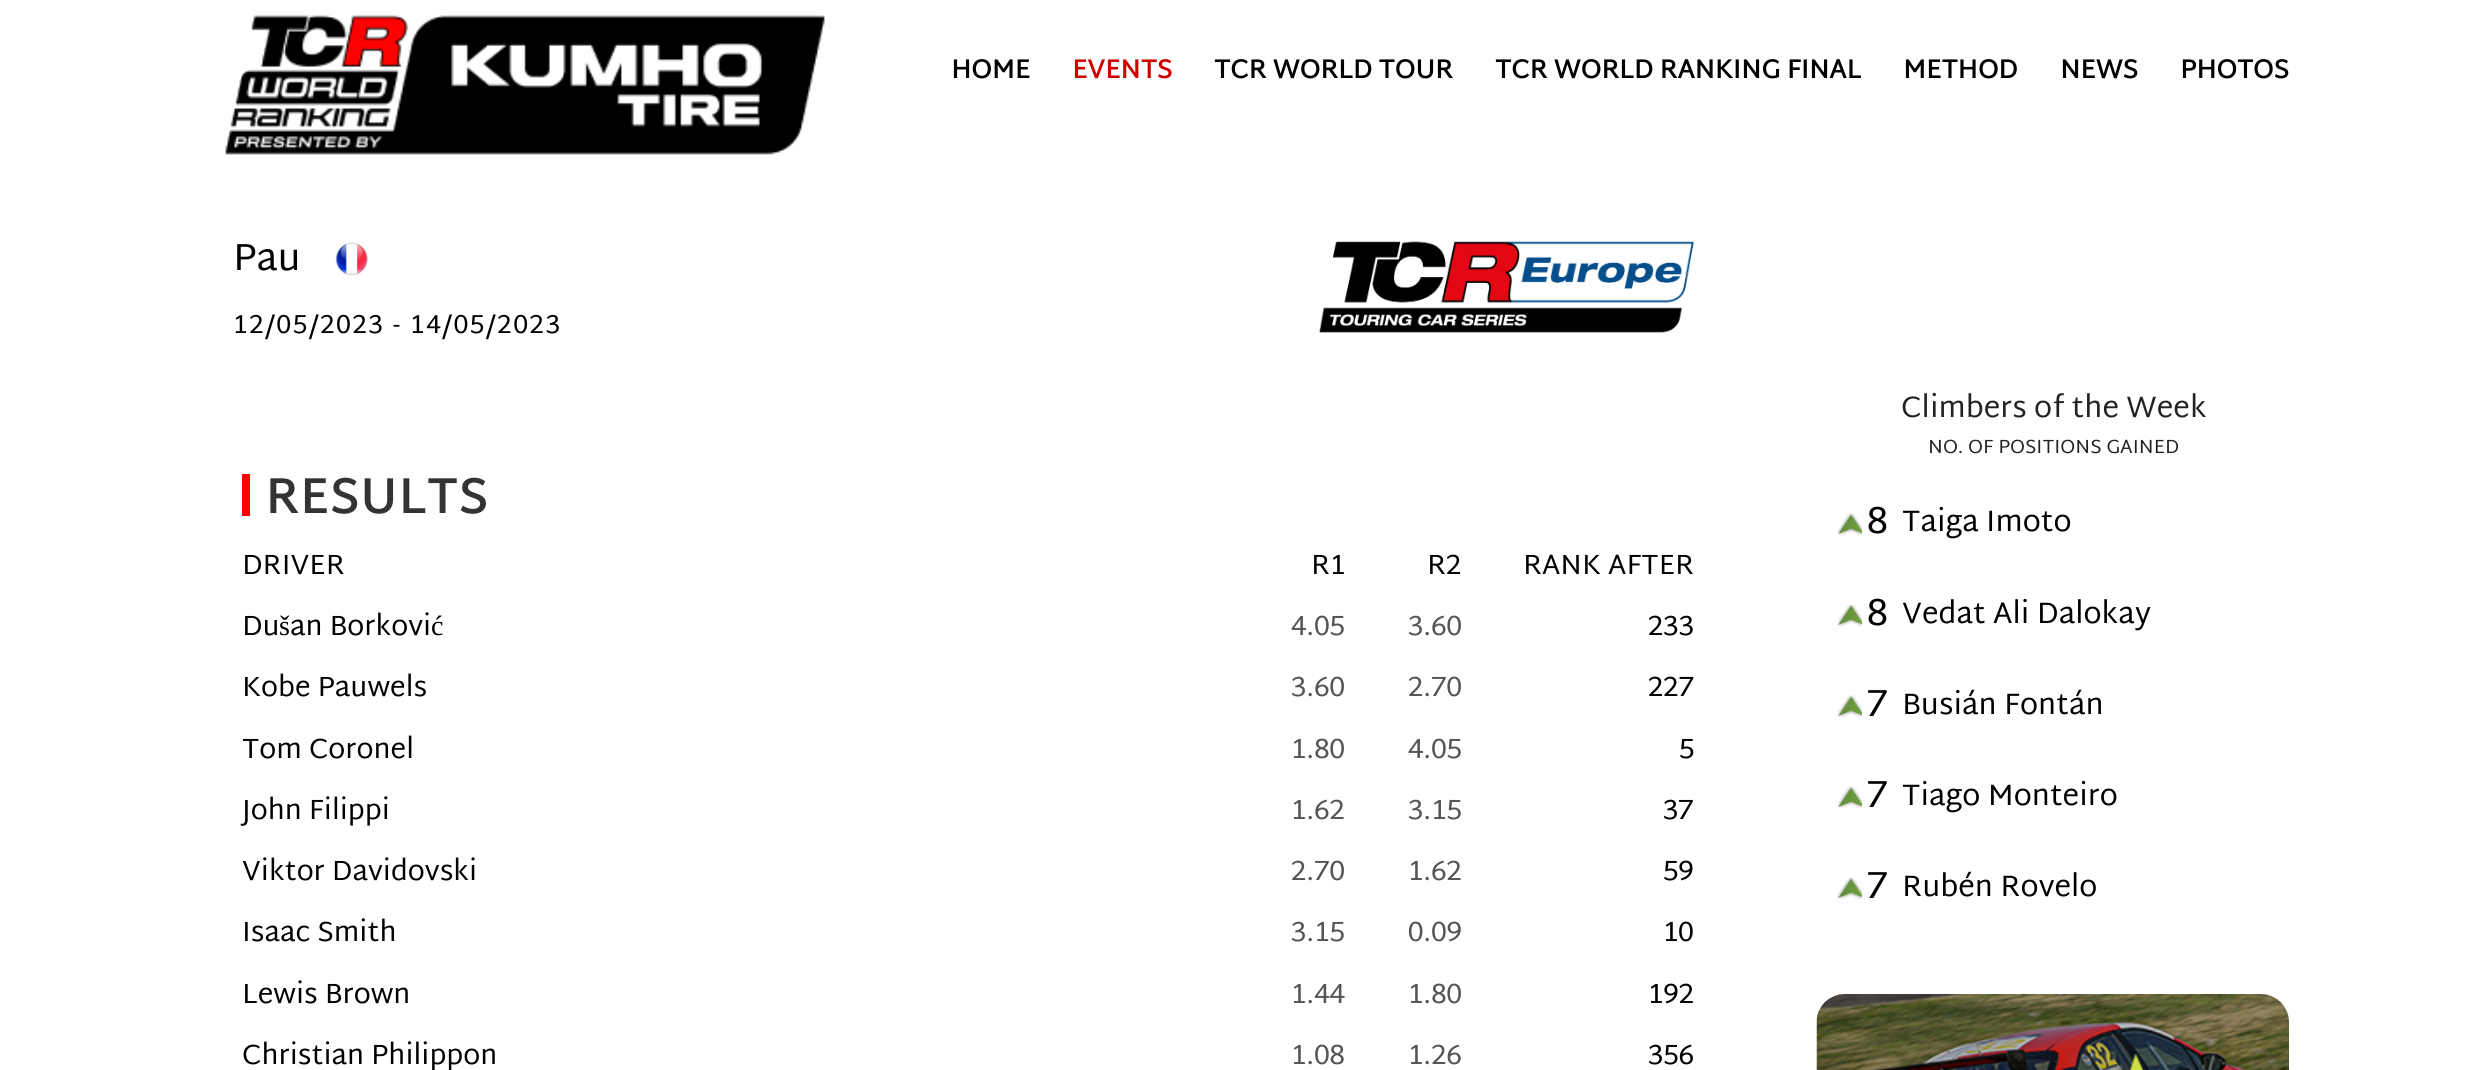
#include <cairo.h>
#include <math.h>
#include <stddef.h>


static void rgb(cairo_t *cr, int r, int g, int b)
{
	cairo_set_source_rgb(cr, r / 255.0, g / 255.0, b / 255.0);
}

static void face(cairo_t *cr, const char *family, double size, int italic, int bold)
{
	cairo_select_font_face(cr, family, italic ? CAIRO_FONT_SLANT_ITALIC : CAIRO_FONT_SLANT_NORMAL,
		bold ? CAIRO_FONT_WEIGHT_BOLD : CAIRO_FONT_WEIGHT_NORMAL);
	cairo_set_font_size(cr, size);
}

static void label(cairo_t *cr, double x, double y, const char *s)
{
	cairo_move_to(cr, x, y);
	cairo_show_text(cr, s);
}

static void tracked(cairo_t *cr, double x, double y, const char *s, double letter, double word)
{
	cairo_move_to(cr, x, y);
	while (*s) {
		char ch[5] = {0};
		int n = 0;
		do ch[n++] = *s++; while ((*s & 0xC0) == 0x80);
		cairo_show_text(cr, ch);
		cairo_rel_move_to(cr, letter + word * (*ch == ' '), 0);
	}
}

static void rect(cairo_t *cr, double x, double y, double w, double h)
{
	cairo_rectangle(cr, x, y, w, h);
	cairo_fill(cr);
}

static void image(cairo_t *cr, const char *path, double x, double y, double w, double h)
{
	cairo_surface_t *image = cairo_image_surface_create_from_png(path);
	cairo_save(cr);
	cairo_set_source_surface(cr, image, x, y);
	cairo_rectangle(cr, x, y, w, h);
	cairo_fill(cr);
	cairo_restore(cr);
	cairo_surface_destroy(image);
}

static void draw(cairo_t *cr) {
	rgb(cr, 255, 255, 255);
	cairo_paint(cr);
	image(cr, "image0.png", 225, 15, 600, 140);
	face(cr, "Martel Sans", 26.25, 0, 1);
	rgb(cr, 0, 0, 0);
	label(cr, 951, 78, "HOME");
	rgb(cr, 207, 0, 0);
	label(cr, 1072, 78, "EVENTS");
	rgb(cr, 0, 0, 0);
	label(cr, 1214, 78, "TCR WORLD TOUR");
	label(cr, 1495, 78, "TCR WORLD RANKING FINAL");
	label(cr, 1903, 78, "METHOD");
	label(cr, 2060, 78, "NEWS");
	label(cr, 2180, 78, "PHOTOS");
	face(cr, "Martel Sans", 38, 0, 0);
	label(cr, 233, 270, "Pau");
	image(cr, "image1.png", 335, 242, 33, 34);
	face(cr, "Martel Sans", 26.25, 0, 0);
	tracked(cr, 233, 333, "12/05/2023 - 14/05/2023", 1.75, 0);
	image(cr, "image2.png", 1319, 241, 375, 92);
	rgb(cr, 255, 0, 0);
	rect(cr, 242, 474, 8, 42);
	face(cr, "Martel Sans", 49, 0, 1);
	rgb(cr, 51, 51, 51);
	tracked(cr, 265, 513, "RESULTS", 1.25, 0);
	face(cr, "Martel Sans", 28, 0, 0);
	rgb(cr, 0, 0, 0);
	label(cr, 242, 574, "DRIVER");
	label(cr, 1311, 574, "R1");
	label(cr, 1427, 574, "R2");
	label(cr, 1523, 574, "RANK AFTER");
	label(cr, 242, 635, "Du");
	face(cr, "Liberation Serif", 28, 0, 0);
	label(cr, 279, 635, "š");
	face(cr, "Martel Sans", 28, 0, 0);
	label(cr, 290, 635, "an Borkovi");
	face(cr, "Liberation Serif", 28, 0, 0);
	label(cr, 431, 635, "ć");
	face(cr, "Martel Sans", 28, 0, 0);
	rgb(cr, 85, 85, 85);
	label(cr, 1291, 635, "4.05");
	label(cr, 1408, 635, "3.60");
	rgb(cr, 0, 0, 0);
	label(cr, 1648, 635, "233");
	label(cr, 242, 696, "Kobe Pauwels");
	rgb(cr, 85, 85, 85);
	label(cr, 1291, 696, "3.60");
	label(cr, 1408, 696, "2.70");
	rgb(cr, 0, 0, 0);
	label(cr, 1648, 696, "227");
	label(cr, 242, 758, "Tom Coronel");
	rgb(cr, 85, 85, 85);
	label(cr, 1291, 758, "1.80");
	label(cr, 1408, 758, "4.05");
	rgb(cr, 0, 0, 0);
	label(cr, 1679, 758, "5");
	label(cr, 242, 819, "John Filippi");
	rgb(cr, 85, 85, 85);
	label(cr, 1291, 819, "1.62");
	label(cr, 1408, 819, "3.15");
	rgb(cr, 0, 0, 0);
	label(cr, 1663, 819, "37");
	label(cr, 242, 880, "Viktor Davidovski");
	rgb(cr, 85, 85, 85);
	label(cr, 1291, 880, "2.70");
	label(cr, 1408, 880, "1.62");
	rgb(cr, 0, 0, 0);
	label(cr, 1663, 880, "59");
	label(cr, 242, 941, "Isaac Smith");
	rgb(cr, 85, 85, 85);
	label(cr, 1291, 941, "3.15");
	label(cr, 1408, 941, "0.09");
	rgb(cr, 0, 0, 0);
	label(cr, 1663, 941, "10");
	label(cr, 242, 1003, "Lewis Brown");
	rgb(cr, 85, 85, 85);
	label(cr, 1291, 1003, "1.44");
	label(cr, 1408, 1003, "1.80");
	rgb(cr, 0, 0, 0);
	label(cr, 1648, 1003, "192");
	label(cr, 242, 1064, "Christian Philippon");
	rgb(cr, 85, 85, 85);
	label(cr, 1291, 1064, "1.08");
	label(cr, 1408, 1064, "1.26");
	rgb(cr, 0, 0, 0);
	label(cr, 1648, 1064, "356");
	face(cr, "Martel Sans", 29.75, 0, 0);
	rgb(cr, 34, 34, 34);
	label(cr, 1901, 417, "Climbers of the Week");
	face(cr, "Martel Sans", 19.25, 0, 0);
	label(cr, 1928, 453, "NO. OF POSITIONS GAINED");
	image(cr, "image3.png", 1837, 513, 25, 23);
	face(cr, "Martel Sans", 38, 0, 0);
	rgb(cr, 0, 0, 0);
	tracked(cr, 1867, 533, "8", -4, 0);
	face(cr, "Martel Sans", 29.75, 0, 0);
	label(cr, 1902, 531, "Taiga Imoto");
	image(cr, "image3.png", 1837, 604, 25, 23);
	face(cr, "Martel Sans", 38, 0, 0);
	tracked(cr, 1867, 625, "8", -4, 0);
	face(cr, "Martel Sans", 29.75, 0, 0);
	label(cr, 1902, 623, "Vedat Ali Dalokay");
	image(cr, "image3.png", 1837, 695, 25, 23);
	face(cr, "Martel Sans", 38, 0, 0);
	tracked(cr, 1867, 716, "7", -4, 0);
	face(cr, "Martel Sans", 29.75, 0, 0);
	label(cr, 1902, 714, "Busián Fontán");
	image(cr, "image3.png", 1837, 786, 25, 23);
	face(cr, "Martel Sans", 38, 0, 0);
	tracked(cr, 1867, 807, "7", -4, 0);
	face(cr, "Martel Sans", 29.75, 0, 0);
	label(cr, 1902, 805, "Tiago Monteiro");
	image(cr, "image3.png", 1837, 877, 25, 23);
	face(cr, "Martel Sans", 38, 0, 0);
	tracked(cr, 1867, 898, "7", -4, 0);
	face(cr, "Martel Sans", 29.75, 0, 0);
	label(cr, 1902, 896, "Rubén Rovelo");
	image(cr, "image4.png", 1816, 994, 473, 76);
}

int main(void) {
	cairo_surface_t *surface = cairo_image_surface_create(CAIRO_FORMAT_RGB24, 2477, 1070);
	cairo_t *cr = cairo_create(surface);
	cairo_font_options_t *options = cairo_font_options_create();
	cairo_font_options_set_hint_metrics(options, CAIRO_HINT_METRICS_OFF);
	cairo_font_options_set_hint_style(options, CAIRO_HINT_STYLE_NONE);
	cairo_set_font_options(cr, options);
	cairo_set_miter_limit(cr, 4);
	draw(cr);
	cairo_surface_write_to_png(surface, "render.png");
	cairo_font_options_destroy(options);
	cairo_destroy(cr);
	cairo_surface_destroy(surface);
	return 0;
}
